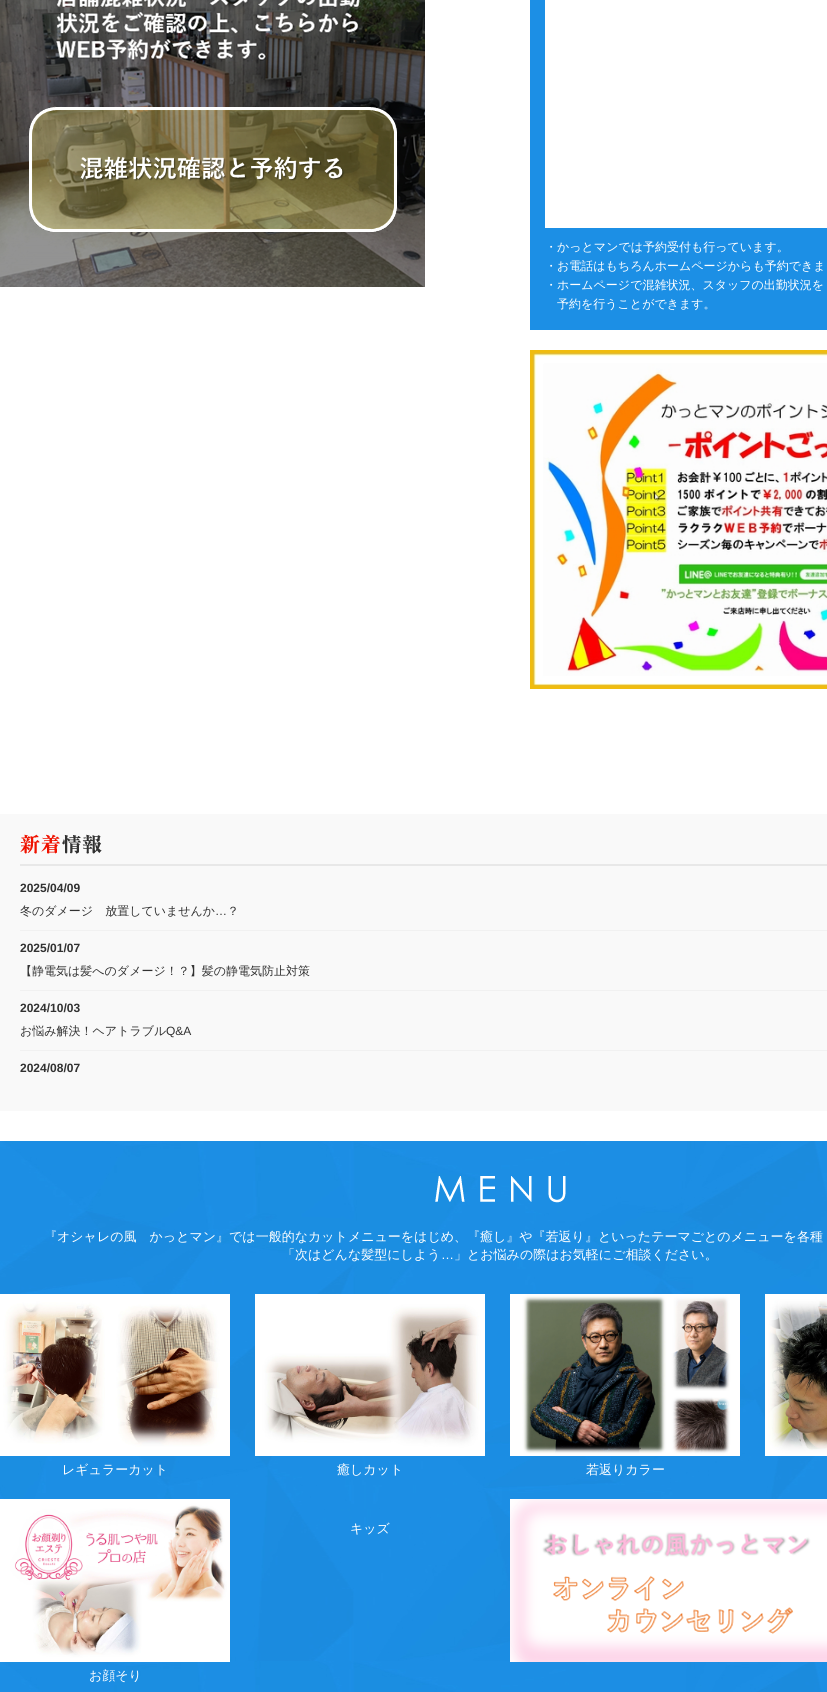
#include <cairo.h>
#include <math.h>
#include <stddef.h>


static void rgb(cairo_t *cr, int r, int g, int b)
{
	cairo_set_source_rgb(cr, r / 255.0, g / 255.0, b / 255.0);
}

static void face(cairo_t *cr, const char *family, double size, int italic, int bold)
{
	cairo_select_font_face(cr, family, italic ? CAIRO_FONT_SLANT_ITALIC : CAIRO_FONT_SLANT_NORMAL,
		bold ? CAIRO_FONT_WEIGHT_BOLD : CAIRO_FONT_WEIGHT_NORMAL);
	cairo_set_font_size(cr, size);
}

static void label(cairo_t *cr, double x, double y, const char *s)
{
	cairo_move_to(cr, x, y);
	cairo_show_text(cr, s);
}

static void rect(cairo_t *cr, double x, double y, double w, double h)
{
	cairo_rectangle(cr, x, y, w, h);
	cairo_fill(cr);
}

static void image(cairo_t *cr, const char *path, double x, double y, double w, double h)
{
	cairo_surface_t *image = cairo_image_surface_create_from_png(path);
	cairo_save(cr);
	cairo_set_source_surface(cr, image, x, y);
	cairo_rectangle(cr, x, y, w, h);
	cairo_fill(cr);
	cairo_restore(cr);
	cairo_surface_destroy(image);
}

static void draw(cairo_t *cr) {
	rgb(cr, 255, 255, 255);
	cairo_paint(cr);
	image(cr, "image0.png", 0, 0, 425, 287);
	image(cr, "image1.png", 29, 107, 368, 125);
	rgb(cr, 28, 143, 229);
	rect(cr, 530, 0, 297, 330);
	rgb(cr, 255, 255, 255);
	rect(cr, 545, 0, 282, 228);
	face(cr, "WenQuanYi Zen Hei Medium", 12, 0, 0);
	label(cr, 545, 251, "・かっとマンでは予約受付も行っています。");
	label(cr, 545, 270, "・お電話はもちろんホームページからも予約できま");
	label(cr, 545, 289, "・ホームページで混雑状況、スタッフの出勤状況を");
	label(cr, 557, 308, "予約を行うことができます。");
	image(cr, "image2.png", 530, 350, 297, 339);
	rgb(cr, 249, 249, 249);
	rect(cr, 0, 814, 827, 297);
	rgb(cr, 232, 232, 232);
	rect(cr, 20, 864, 807, 2);
	image(cr, "image3.png", 20, 834, 82, 20);
	rgb(cr, 241, 241, 241);
	rect(cr, 20, 930, 807, 1);
	face(cr, "Liberation Sans", 12, 0, 1);
	rgb(cr, 49, 49, 49);
	label(cr, 20, 892, "2025/04/09");
	face(cr, "WenQuanYi Zen Hei Medium", 12, 0, 0);
	label(cr, 20, 915, "冬のダメージ　放置していませんか");
	face(cr, "Liberation Sans", 12, 0, 0);
	label(cr, 215, 915, "…");
	face(cr, "WenQuanYi Zen Hei Medium", 12, 0, 0);
	label(cr, 227, 915, "？");
	rgb(cr, 241, 241, 241);
	rect(cr, 20, 990, 807, 1);
	face(cr, "Liberation Sans", 12, 0, 1);
	rgb(cr, 49, 49, 49);
	label(cr, 20, 952, "2025/01/07");
	face(cr, "WenQuanYi Zen Hei Medium", 12, 0, 0);
	label(cr, 20, 975, "【静電気は髪へのダメージ！？】髪の静電気防止対策");
	rgb(cr, 241, 241, 241);
	rect(cr, 20, 1050, 807, 1);
	face(cr, "Liberation Sans", 12, 0, 1);
	rgb(cr, 49, 49, 49);
	label(cr, 20, 1012, "2024/10/03");
	face(cr, "WenQuanYi Zen Hei Medium", 12, 0, 0);
	label(cr, 20, 1035, "お悩み解決！ヘアトラブル");
	face(cr, "Liberation Sans", 12, 0, 0);
	label(cr, 166, 1035, "Q&A");
	face(cr, "Liberation Sans", 12, 0, 1);
	label(cr, 20, 1072, "2024/08/07");
	image(cr, "image4.png", 0, 1141, 827, 551);
	image(cr, "image5.png", 435, 1176, 131, 27);
	face(cr, "WenQuanYi Zen Hei Medium", 13, 0, 0);
	rgb(cr, 255, 255, 255);
	label(cr, 44, 1241, "『オシャレの風　かっとマン』では一般的なカットメニューをはじめ、『癒し』や『若返り』といったテーマごとのメニューを各種");
	label(cr, 282, 1259, "「次はどんな髪型にしよう");
	face(cr, "Liberation Sans", 13, 0, 0);
	label(cr, 441, 1259, "…");
	face(cr, "WenQuanYi Zen Hei Medium", 13, 0, 0);
	label(cr, 454, 1259, "」とお悩みの際はお気軽にご相談ください。");
	image(cr, "image6.png", 765, 1294, 62, 162);
	image(cr, "image7.png", 0, 1294, 230, 162);
	label(cr, 62, 1474, "レギュラーカット");
	image(cr, "image8.png", 255, 1294, 230, 162);
	label(cr, 337, 1474, "癒しカット");
	image(cr, "image9.png", 510, 1294, 230, 162);
	label(cr, 586, 1474, "若返りカラー");
	label(cr, 350, 1533, "キッズ");
	image(cr, "image10.png", 510, 1499, 317, 163);
	image(cr, "image11.png", 0, 1499, 230, 163);
	label(cr, 89, 1680, "お顔そり");
}

int main(void) {
	cairo_surface_t *surface = cairo_image_surface_create(CAIRO_FORMAT_RGB24, 827, 1692);
	cairo_t *cr = cairo_create(surface);
	cairo_font_options_t *options = cairo_font_options_create();
	cairo_font_options_set_hint_metrics(options, CAIRO_HINT_METRICS_OFF);
	cairo_font_options_set_hint_style(options, CAIRO_HINT_STYLE_NONE);
	cairo_set_font_options(cr, options);
	cairo_set_miter_limit(cr, 4);
	draw(cr);
	cairo_surface_write_to_png(surface, "render.png");
	cairo_font_options_destroy(options);
	cairo_destroy(cr);
	cairo_surface_destroy(surface);
	return 0;
}
